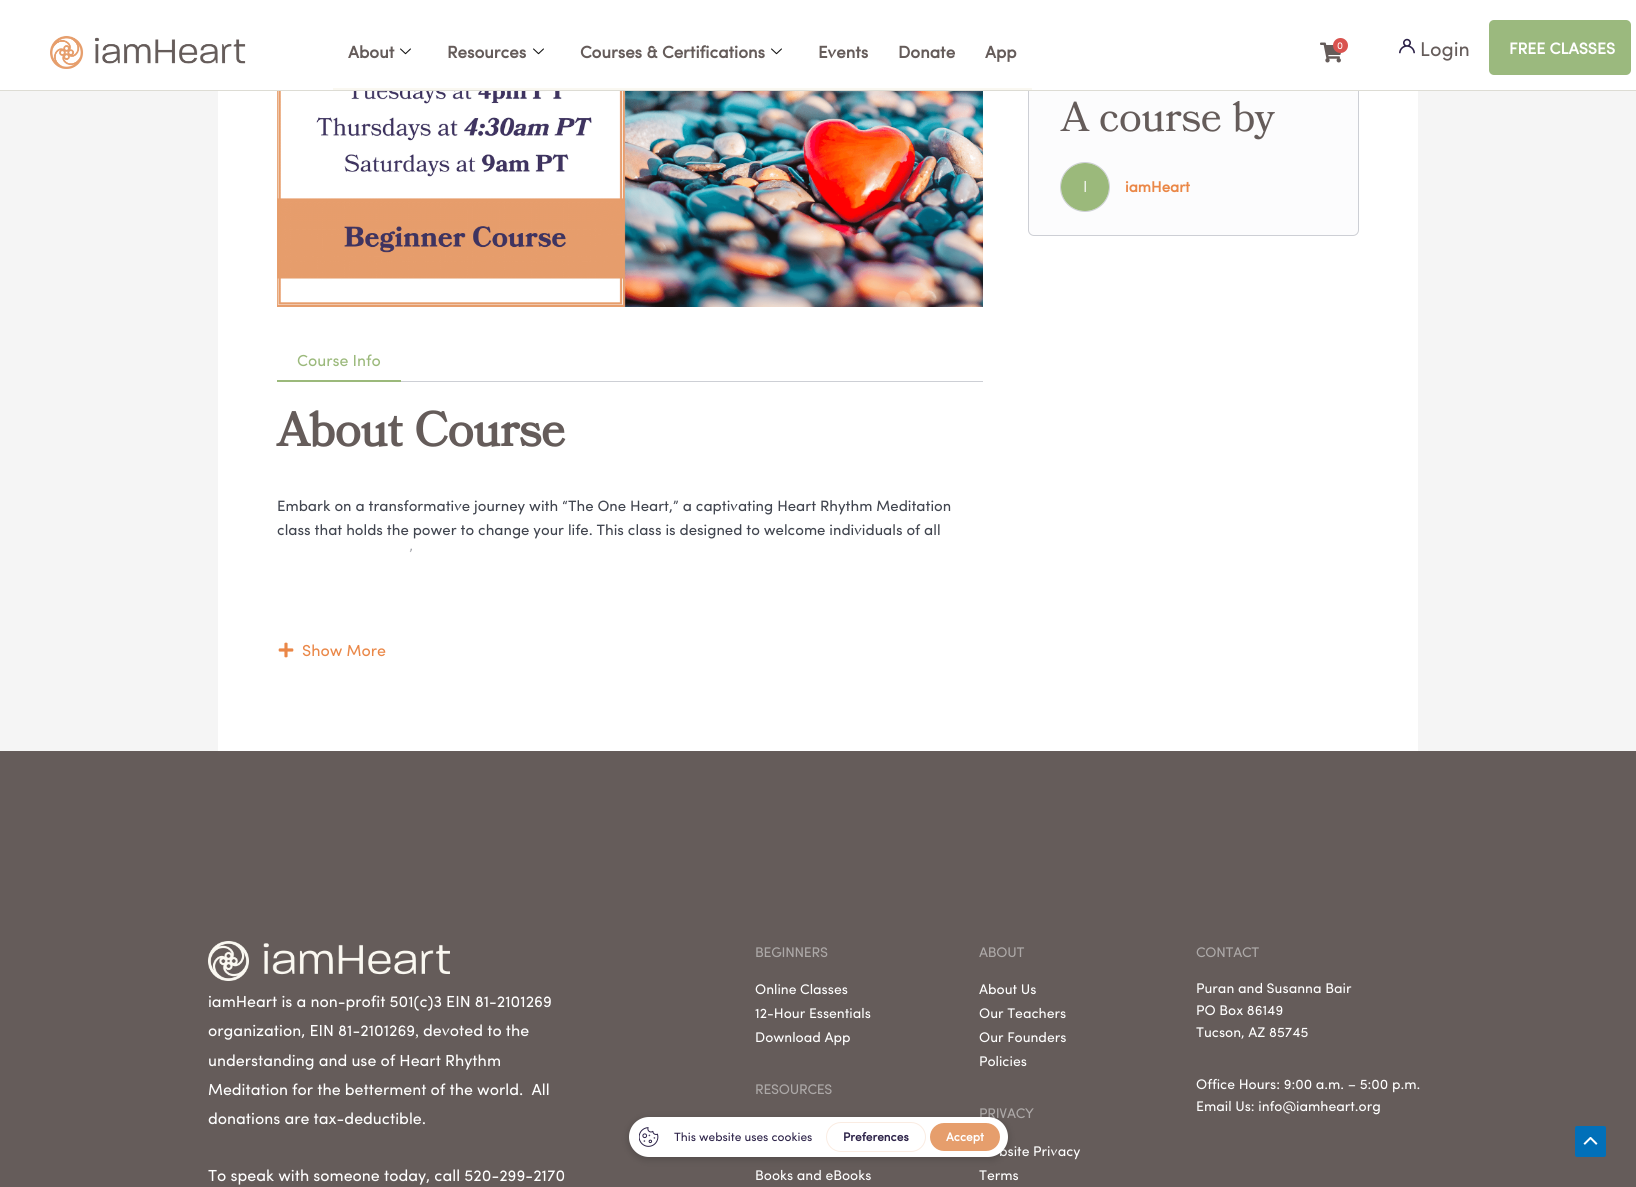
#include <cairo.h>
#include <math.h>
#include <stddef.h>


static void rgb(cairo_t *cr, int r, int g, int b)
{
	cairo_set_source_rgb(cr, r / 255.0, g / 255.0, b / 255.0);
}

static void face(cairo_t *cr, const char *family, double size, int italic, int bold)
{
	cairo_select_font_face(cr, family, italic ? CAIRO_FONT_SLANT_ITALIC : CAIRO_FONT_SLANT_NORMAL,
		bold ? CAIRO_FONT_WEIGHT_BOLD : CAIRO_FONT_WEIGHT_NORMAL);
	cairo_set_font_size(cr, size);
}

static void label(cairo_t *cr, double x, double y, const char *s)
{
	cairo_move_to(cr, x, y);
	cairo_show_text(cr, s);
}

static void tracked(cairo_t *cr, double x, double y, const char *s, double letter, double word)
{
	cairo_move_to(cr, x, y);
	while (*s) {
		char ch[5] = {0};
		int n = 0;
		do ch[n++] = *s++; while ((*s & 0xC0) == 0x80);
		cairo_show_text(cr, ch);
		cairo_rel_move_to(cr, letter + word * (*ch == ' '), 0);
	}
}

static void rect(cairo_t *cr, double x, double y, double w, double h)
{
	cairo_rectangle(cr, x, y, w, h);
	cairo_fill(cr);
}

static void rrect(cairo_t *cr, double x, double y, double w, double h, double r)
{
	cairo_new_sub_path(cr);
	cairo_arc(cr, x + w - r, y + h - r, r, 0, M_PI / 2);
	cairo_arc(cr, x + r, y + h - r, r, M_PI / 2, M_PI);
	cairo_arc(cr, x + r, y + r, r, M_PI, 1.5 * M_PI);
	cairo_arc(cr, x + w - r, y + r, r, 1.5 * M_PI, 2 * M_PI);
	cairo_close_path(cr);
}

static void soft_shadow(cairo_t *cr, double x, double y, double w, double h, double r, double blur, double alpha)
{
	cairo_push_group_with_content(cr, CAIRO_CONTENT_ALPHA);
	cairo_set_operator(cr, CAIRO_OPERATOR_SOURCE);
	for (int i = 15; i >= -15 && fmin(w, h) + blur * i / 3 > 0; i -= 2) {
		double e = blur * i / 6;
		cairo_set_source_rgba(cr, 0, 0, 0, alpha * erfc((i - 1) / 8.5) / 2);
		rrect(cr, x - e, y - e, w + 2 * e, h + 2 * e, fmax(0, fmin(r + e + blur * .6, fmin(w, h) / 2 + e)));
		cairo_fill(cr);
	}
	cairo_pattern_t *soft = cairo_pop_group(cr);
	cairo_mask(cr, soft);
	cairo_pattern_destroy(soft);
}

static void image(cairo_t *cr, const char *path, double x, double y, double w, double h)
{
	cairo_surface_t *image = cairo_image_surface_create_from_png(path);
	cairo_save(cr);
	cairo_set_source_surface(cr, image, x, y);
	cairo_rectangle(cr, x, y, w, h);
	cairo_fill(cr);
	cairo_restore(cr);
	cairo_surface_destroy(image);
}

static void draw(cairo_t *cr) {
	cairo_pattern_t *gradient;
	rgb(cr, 245, 245, 245);
	cairo_paint(cr);
	rgb(cr, 255, 255, 255);
	rect(cr, 218, 91, 1200, 660);
	rgb(cr, 252, 252, 253);
	rrect(cr, 1028.5, 67.5, 330, 168, 5.5);
	cairo_fill_preserve(cr);
	rgb(cr, 205, 207, 213);
	cairo_set_line_width(cr, 1);
	cairo_stroke(cr);
	rgb(cr, 255, 255, 255);
	rect(cr, 0, 0, 1636, 90);
	rgb(cr, 221, 220, 212);
	rect(cr, 0, 90, 1636, 1);
	image(cr, "image0.png", 50, 35, 196, 34);
	rgb(cr, 250, 248, 241);
	rect(cr, 333, 88, 699, 2);
	face(cr, "Sofia", 17, 0, 1);
	rgb(cr, 101, 92, 90);
	label(cr, 348, 58, "About");
	image(cr, "image1.png", 400, 48, 11, 7);
	label(cr, 447, 58, "Resources");
	image(cr, "image1.png", 533, 48, 11, 7);
	label(cr, 580, 58, "Courses & Certifications");
	image(cr, "image1.png", 771, 48, 11, 7);
	label(cr, 818, 58, "Events");
	label(cr, 898, 58, "Donate");
	label(cr, 985, 58, "App");
	image(cr, "image2.png", 1320, 42, 22, 21);
	rgb(cr, 217, 83, 79);
	cairo_arc(cr, 1340.5, 45.5, 7.5, 0, 2 * M_PI);
	cairo_fill(cr);
	face(cr, "Sofia", 10, 0, 0);
	rgb(cr, 255, 255, 255);
	label(cr, 1337, 49, "0");
	image(cr, "image3.png", 1399, 38, 16, 16);
	face(cr, "Sofia", 20, 0, 0);
	rgb(cr, 101, 92, 90);
	label(cr, 1420, 56, "Login");
	rgb(cr, 155, 185, 126);
	rrect(cr, 1489, 20, 142, 55, 5);
	cairo_fill(cr);
	face(cr, "Sofia", 16, 0, 1);
	rgb(cr, 255, 255, 255);
	label(cr, 1509, 54, "FREE CLASSES");
	face(cr, "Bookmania", 42, 0, 0);
	rgb(cr, 101, 92, 90);
	tracked(cr, 1061, 131, "A course by", -0.25, 0);
	cairo_new_path(cr);
	cairo_arc(cr, 1085, 187, 24.5, 0, 2 * M_PI);
	rgb(cr, 205, 207, 213);
	cairo_stroke(cr);
	rgb(cr, 155, 185, 123);
	cairo_arc(cr, 1085, 187, 24, 0, 2 * M_PI);
	cairo_fill(cr);
	face(cr, "Sofia", 16, 0, 0);
	rgb(cr, 235, 241, 229);
	label(cr, 1083, 192, "I");
	face(cr, "Sofia", 15, 0, 1);
	rgb(cr, 234, 135, 71);
	label(cr, 1125, 192, "iamHeart");
	image(cr, "image4.png", 277, 91, 706, 216);
	rgb(cr, 205, 207, 213);
	rect(cr, 401, 381, 582, 1);
	rgb(cr, 155, 185, 123);
	rect(cr, 277, 380, 124, 2);
	face(cr, "Sofia", 16, 0, 0);
	label(cr, 297, 366, "Course Info");
	face(cr, "Bookmania", 48, 0, 1);
	rgb(cr, 101, 92, 90);
	tracked(cr, 277, 446, "About Course", -0.25, 0);
	face(cr, "Sofia", 15, 0, 0);
	rgb(cr, 65, 69, 79);
	label(cr, 277, 511, "Embark on a transformative journey with “The One Heart,” a captivating Heart Rhythm Meditation");
	label(cr, 277, 535, "class that holds the power to change your life. This class is designed to welcome individuals of all");
	label(cr, 409, 559, "’");
	gradient = cairo_pattern_create_linear(630, 544, 630, 606);
	cairo_pattern_add_color_stop_rgba(gradient, 0.01, 1, 1, 1, 0);
	cairo_pattern_add_color_stop_rgba(gradient, 0.15, 1, 1, 1, 0.72);
	cairo_pattern_add_color_stop_rgba(gradient, 1, 1, 1, 1, 1);
	cairo_set_source(cr, gradient);
	cairo_pattern_destroy(gradient);
	rect(cr, 409, 548, 3, 5);
	image(cr, "image5.png", 278, 642, 16, 16);
	face(cr, "Sofia", 16, 0, 0);
	rgb(cr, 234, 135, 71);
	label(cr, 302, 656, "Show More");
	rgb(cr, 101, 92, 90);
	rect(cr, 0, 751, 1636, 436);
	image(cr, "image6.png", 208, 941, 242, 40);
	rgb(cr, 255, 255, 255);
	label(cr, 208, 1007, "iamHeart is a non-profit 501(c)3 EIN 81-2101269");
	label(cr, 208, 1036, "organization, EIN 81-2101269");
	face(cr, "Liberation Serif", 16, 0, 0);
	label(cr, 415, 1036, ",");
	face(cr, "Sofia", 16, 0, 0);
	label(cr, 423, 1036, "devoted to the");
	label(cr, 208, 1066, "understanding and use of Heart Rhythm");
	label(cr, 208, 1095, "Meditation for the betterment of the world.  All");
	label(cr, 208, 1124, "donations are tax-deductible.");
	label(cr, 208, 1181, "To speak with someone today, call 520-299-2170");
	face(cr, "Sofia", 14, 0, 0);
	rgb(cr, 173, 169, 168);
	tracked(cr, 755, 957, "BEGINNERS", -0.25, 0);
	rgb(cr, 255, 255, 255);
	label(cr, 755, 994, "Online Classes");
	label(cr, 755, 1018, "12-Hour Essentials");
	label(cr, 755, 1042, "Download App");
	rgb(cr, 173, 169, 168);
	tracked(cr, 755, 1094, "RESOURCES", -0.25, 0);
	rgb(cr, 255, 255, 255);
	label(cr, 755, 1180, "Books and eBooks");
	rgb(cr, 173, 169, 168);
	tracked(cr, 979, 957, "ABOUT", -0.25, 0);
	rgb(cr, 255, 255, 255);
	label(cr, 979, 994, "About Us");
	label(cr, 979, 1018, "Our Teachers");
	label(cr, 979, 1042, "Our Founders");
	label(cr, 979, 1066, "Policies");
	rgb(cr, 173, 169, 168);
	tracked(cr, 979, 1118, "PRIVACY", -0.25, 0);
	rgb(cr, 255, 255, 255);
	label(cr, 999, 1156, "bsite Privacy");
	label(cr, 979, 1180, "Terms");
	rgb(cr, 173, 169, 168);
	tracked(cr, 1196, 957, "CONTACT", -0.25, 0);
	rgb(cr, 255, 255, 255);
	label(cr, 1196, 993, "Puran and Susanna Bair");
	label(cr, 1196, 1015, "PO Box 86149");
	label(cr, 1196, 1037, "Tucson, AZ 85745");
	label(cr, 1196, 1089, "Office Hours: 9:00 a.m. – 5:00 p.m.");
	label(cr, 1196, 1111, "Email Us: info@iamheart.org");
	rgb(cr, 0, 0, 0);
	soft_shadow(cr, 629, 1119, 379, 40, 20, 4, 0.2);
	rgb(cr, 255, 255, 255);
	rrect(cr, 629, 1117, 379, 40, 20);
	cairo_fill(cr);
	image(cr, "image7.png", 639, 1127, 20, 20);
	face(cr, "Sofia", 12, 0, 0);
	rgb(cr, 44, 34, 72);
	label(cr, 674, 1141, "This website uses cookies");
	rrect(cr, 826.5, 1122.5, 99, 29, 14.5);
	rgb(cr, 250, 236, 226);
	cairo_stroke(cr);
	face(cr, "Sofia", 12, 0, 1);
	rgb(cr, 44, 34, 72);
	label(cr, 843, 1141, "Preferences");
	rgb(cr, 230, 158, 108);
	rrect(cr, 930, 1123, 70, 28, 14);
	cairo_fill(cr);
	rgb(cr, 255, 255, 255);
	label(cr, 946, 1141, "Accept");
	rgb(cr, 1, 112, 185);
	rrect(cr, 1575, 1126, 31, 31, 2);
	cairo_fill(cr);
	image(cr, "image8.png", 1583, 1137, 15, 8);
}

int main(void) {
	cairo_surface_t *surface = cairo_image_surface_create(CAIRO_FORMAT_RGB24, 1636, 1187);
	cairo_t *cr = cairo_create(surface);
	cairo_font_options_t *options = cairo_font_options_create();
	cairo_font_options_set_hint_metrics(options, CAIRO_HINT_METRICS_OFF);
	cairo_font_options_set_hint_style(options, CAIRO_HINT_STYLE_NONE);
	cairo_set_font_options(cr, options);
	cairo_set_miter_limit(cr, 4);
	draw(cr);
	cairo_surface_write_to_png(surface, "render.png");
	cairo_font_options_destroy(options);
	cairo_destroy(cr);
	cairo_surface_destroy(surface);
	return 0;
}
